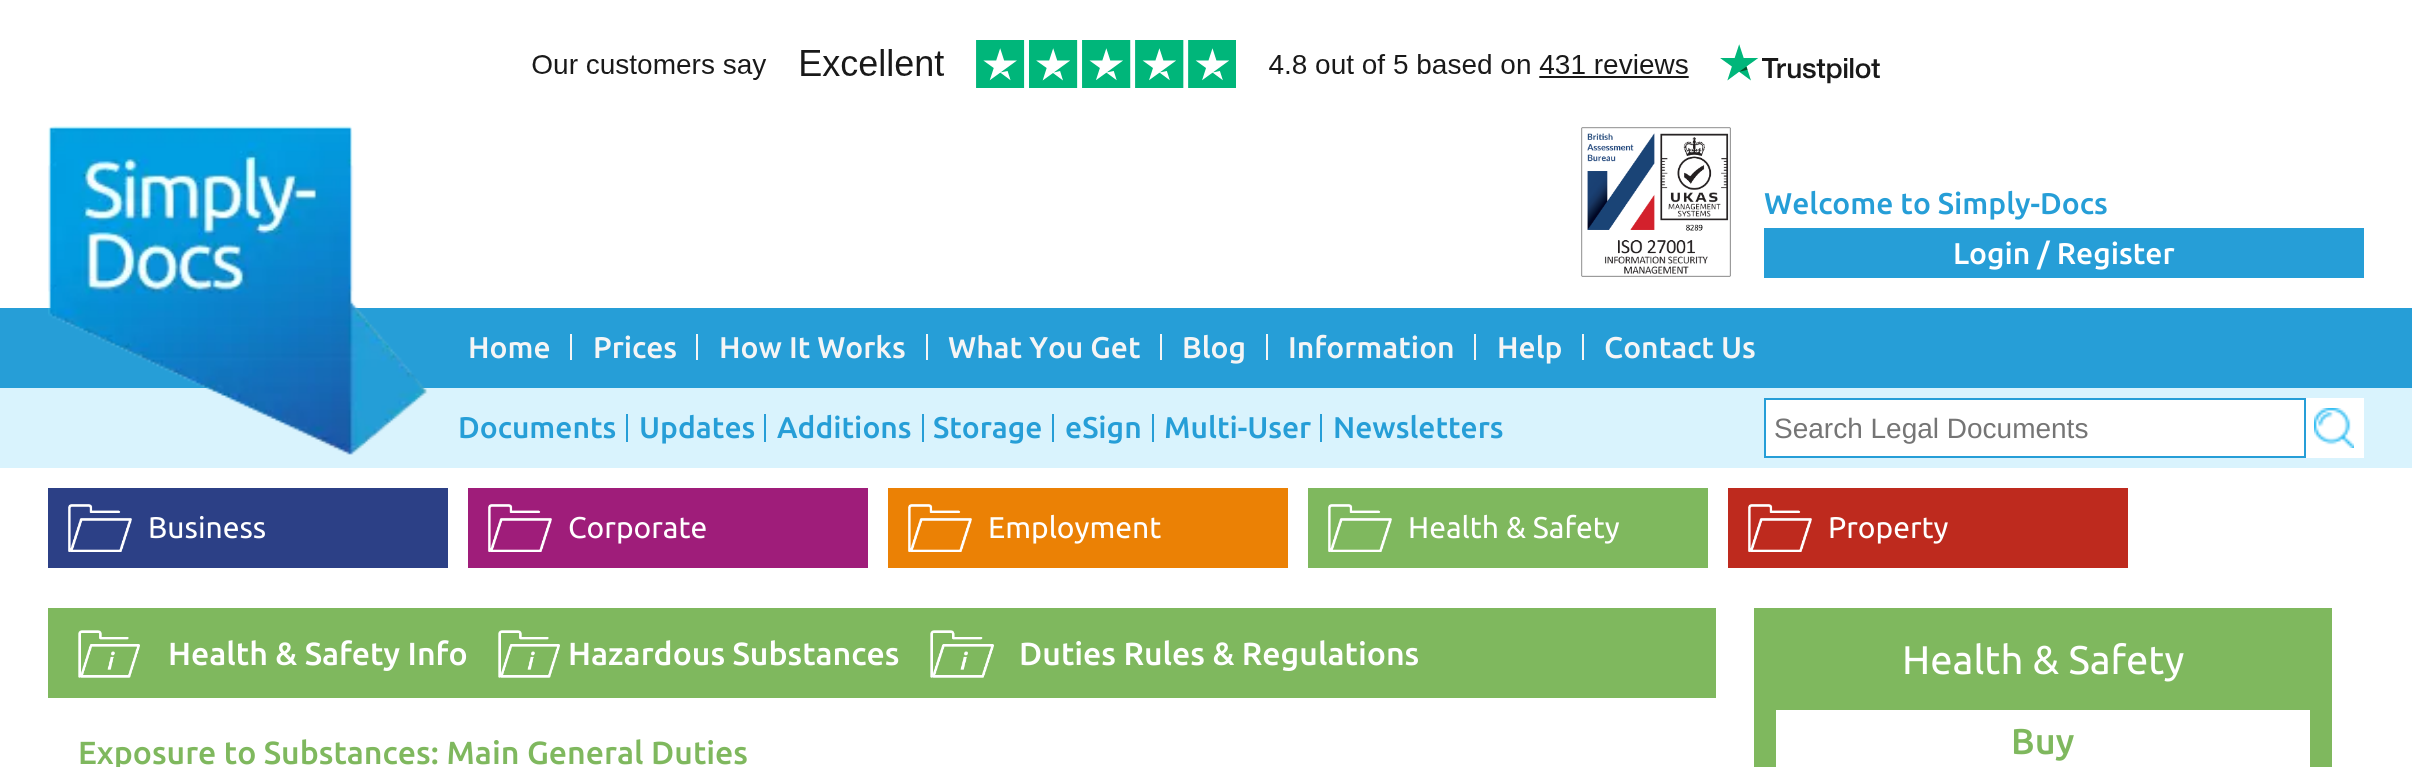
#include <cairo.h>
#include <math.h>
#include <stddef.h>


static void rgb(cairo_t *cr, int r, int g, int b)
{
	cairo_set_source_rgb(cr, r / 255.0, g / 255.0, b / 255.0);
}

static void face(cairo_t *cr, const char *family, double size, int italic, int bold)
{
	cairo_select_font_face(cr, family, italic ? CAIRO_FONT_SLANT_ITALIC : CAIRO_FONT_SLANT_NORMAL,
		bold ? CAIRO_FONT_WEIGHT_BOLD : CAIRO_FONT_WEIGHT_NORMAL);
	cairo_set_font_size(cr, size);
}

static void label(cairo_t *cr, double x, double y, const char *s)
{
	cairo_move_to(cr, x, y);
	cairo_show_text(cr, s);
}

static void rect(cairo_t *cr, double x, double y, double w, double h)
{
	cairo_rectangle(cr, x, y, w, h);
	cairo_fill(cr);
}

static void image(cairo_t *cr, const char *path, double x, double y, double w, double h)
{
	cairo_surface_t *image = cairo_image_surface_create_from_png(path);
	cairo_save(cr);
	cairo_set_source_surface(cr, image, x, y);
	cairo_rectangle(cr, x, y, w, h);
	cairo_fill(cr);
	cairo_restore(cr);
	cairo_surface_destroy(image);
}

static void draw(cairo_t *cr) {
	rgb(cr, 255, 255, 255);
	cairo_paint(cr);
	image(cr, "image0.png", 532, 40, 1348, 48);
	rgb(cr, 38, 158, 215);
	rect(cr, 0, 308, 2412, 80);
	rgb(cr, 217, 243, 253);
	rect(cr, 0, 388, 2412, 80);
	image(cr, "image1.png", 48, 126, 380, 329);
	image(cr, "image2.png", 1581, 127, 150, 150);
	face(cr, "Ubuntu Medium", 30, 0, 0);
	rgb(cr, 38, 158, 215);
	label(cr, 1764, 214, "Welcome to Simply-Docs");
	rect(cr, 1764, 228, 600, 50);
	rgb(cr, 255, 255, 255);
	label(cr, 1953, 264, "Login / Register");
	rgb(cr, 245, 245, 245);
	rect(cr, 570, 334, 2, 26);
	label(cr, 468, 358, "Home");
	rect(cr, 696, 334, 2, 26);
	label(cr, 593, 358, "Prices");
	rect(cr, 926, 334, 2, 26);
	label(cr, 719, 358, "How It Works");
	rect(cr, 1160, 334, 2, 26);
	label(cr, 948, 358, "What You Get");
	rect(cr, 1266, 334, 2, 26);
	label(cr, 1182, 358, "Blog");
	rect(cr, 1474, 334, 2, 26);
	label(cr, 1288, 358, "Information");
	rect(cr, 1582, 334, 2, 26);
	label(cr, 1497, 358, "Help");
	label(cr, 1604, 358, "Contact Us");
	rgb(cr, 255, 255, 255);
	rect(cr, 1766, 398, 598, 60);
	cairo_rectangle(cr, 1765, 399, 540, 58);
	rgb(cr, 38, 158, 215);
	cairo_stroke(cr);
	face(cr, "Liberation Sans", 28, 0, 0);
	rgb(cr, 117, 117, 117);
	label(cr, 1774, 438, "Search Legal Documents");
	image(cr, "image3.png", 2314, 408, 40, 40);
	rgb(cr, 38, 158, 215);
	rect(cr, 626, 414, 2, 28);
	face(cr, "Ubuntu Medium", 30, 0, 0);
	label(cr, 458, 438, "Documents");
	rect(cr, 764, 414, 2, 28);
	label(cr, 639, 438, "Updates");
	rect(cr, 922, 414, 2, 28);
	label(cr, 777, 438, "Additions");
	rect(cr, 1052, 414, 2, 28);
	label(cr, 933, 438, "Storage");
	rect(cr, 1152, 414, 2, 28);
	label(cr, 1065, 438, "eSign");
	rect(cr, 1320, 414, 2, 28);
	label(cr, 1164, 438, "Multi-User");
	label(cr, 1333, 438, "Newsletters");
	rgb(cr, 44, 64, 134);
	rect(cr, 48, 488, 400, 80);
	image(cr, "image4.png", 68, 504, 64, 48);
	face(cr, "Ubuntu", 30, 0, 0);
	rgb(cr, 255, 255, 255);
	label(cr, 148, 538, "Business");
	rgb(cr, 159, 29, 122);
	rect(cr, 468, 488, 400, 80);
	image(cr, "image5.png", 488, 504, 64, 48);
	rgb(cr, 255, 255, 255);
	label(cr, 568, 538, "Corporate");
	rgb(cr, 235, 129, 5);
	rect(cr, 888, 488, 400, 80);
	image(cr, "image6.png", 908, 504, 64, 48);
	rgb(cr, 255, 255, 255);
	label(cr, 988, 538, "Employment");
	rgb(cr, 127, 184, 94);
	rect(cr, 1308, 488, 400, 80);
	image(cr, "image7.png", 1328, 504, 64, 48);
	rgb(cr, 255, 255, 255);
	label(cr, 1408, 538, "Health & Safety");
	rgb(cr, 190, 42, 30);
	rect(cr, 1728, 488, 400, 80);
	image(cr, "image8.png", 1748, 504, 64, 48);
	rgb(cr, 255, 255, 255);
	label(cr, 1828, 538, "Property");
	rgb(cr, 127, 184, 94);
	rect(cr, 48, 608, 1668, 90);
	image(cr, "image9.png", 78, 630, 62, 48);
	face(cr, "Ubuntu Medium", 32, 0, 0);
	rgb(cr, 255, 255, 255);
	label(cr, 168, 665, "Health & Safety Info");
	image(cr, "image9.png", 498, 630, 62, 48);
	label(cr, 568, 665, "Hazardous Substances");
	image(cr, "image10.png", 930, 630, 64, 48);
	label(cr, 1019, 665, "Duties Rules & Regulations");
	rgb(cr, 127, 184, 94);
	label(cr, 78, 764, "Exposure to Substances: Main General Duties");
	cairo_rectangle(cr, 1755, 609, 576, 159);
	cairo_stroke(cr);
	rect(cr, 1756, 610, 574, 157);
	face(cr, "Ubuntu", 40, 0, 0);
	rgb(cr, 255, 255, 255);
	label(cr, 1902, 674, "Health & Safety");
	rect(cr, 1776, 710, 534, 57);
	face(cr, "Ubuntu Medium", 36, 0, 0);
	rgb(cr, 127, 184, 94);
	label(cr, 2011, 754, "Buy");
}

int main(void) {
	cairo_surface_t *surface = cairo_image_surface_create(CAIRO_FORMAT_RGB24, 2412, 767);
	cairo_t *cr = cairo_create(surface);
	cairo_font_options_t *options = cairo_font_options_create();
	cairo_font_options_set_hint_metrics(options, CAIRO_HINT_METRICS_OFF);
	cairo_font_options_set_hint_style(options, CAIRO_HINT_STYLE_NONE);
	cairo_set_font_options(cr, options);
	cairo_set_miter_limit(cr, 4);
	draw(cr);
	cairo_surface_write_to_png(surface, "render.png");
	cairo_font_options_destroy(options);
	cairo_destroy(cr);
	cairo_surface_destroy(surface);
	return 0;
}
